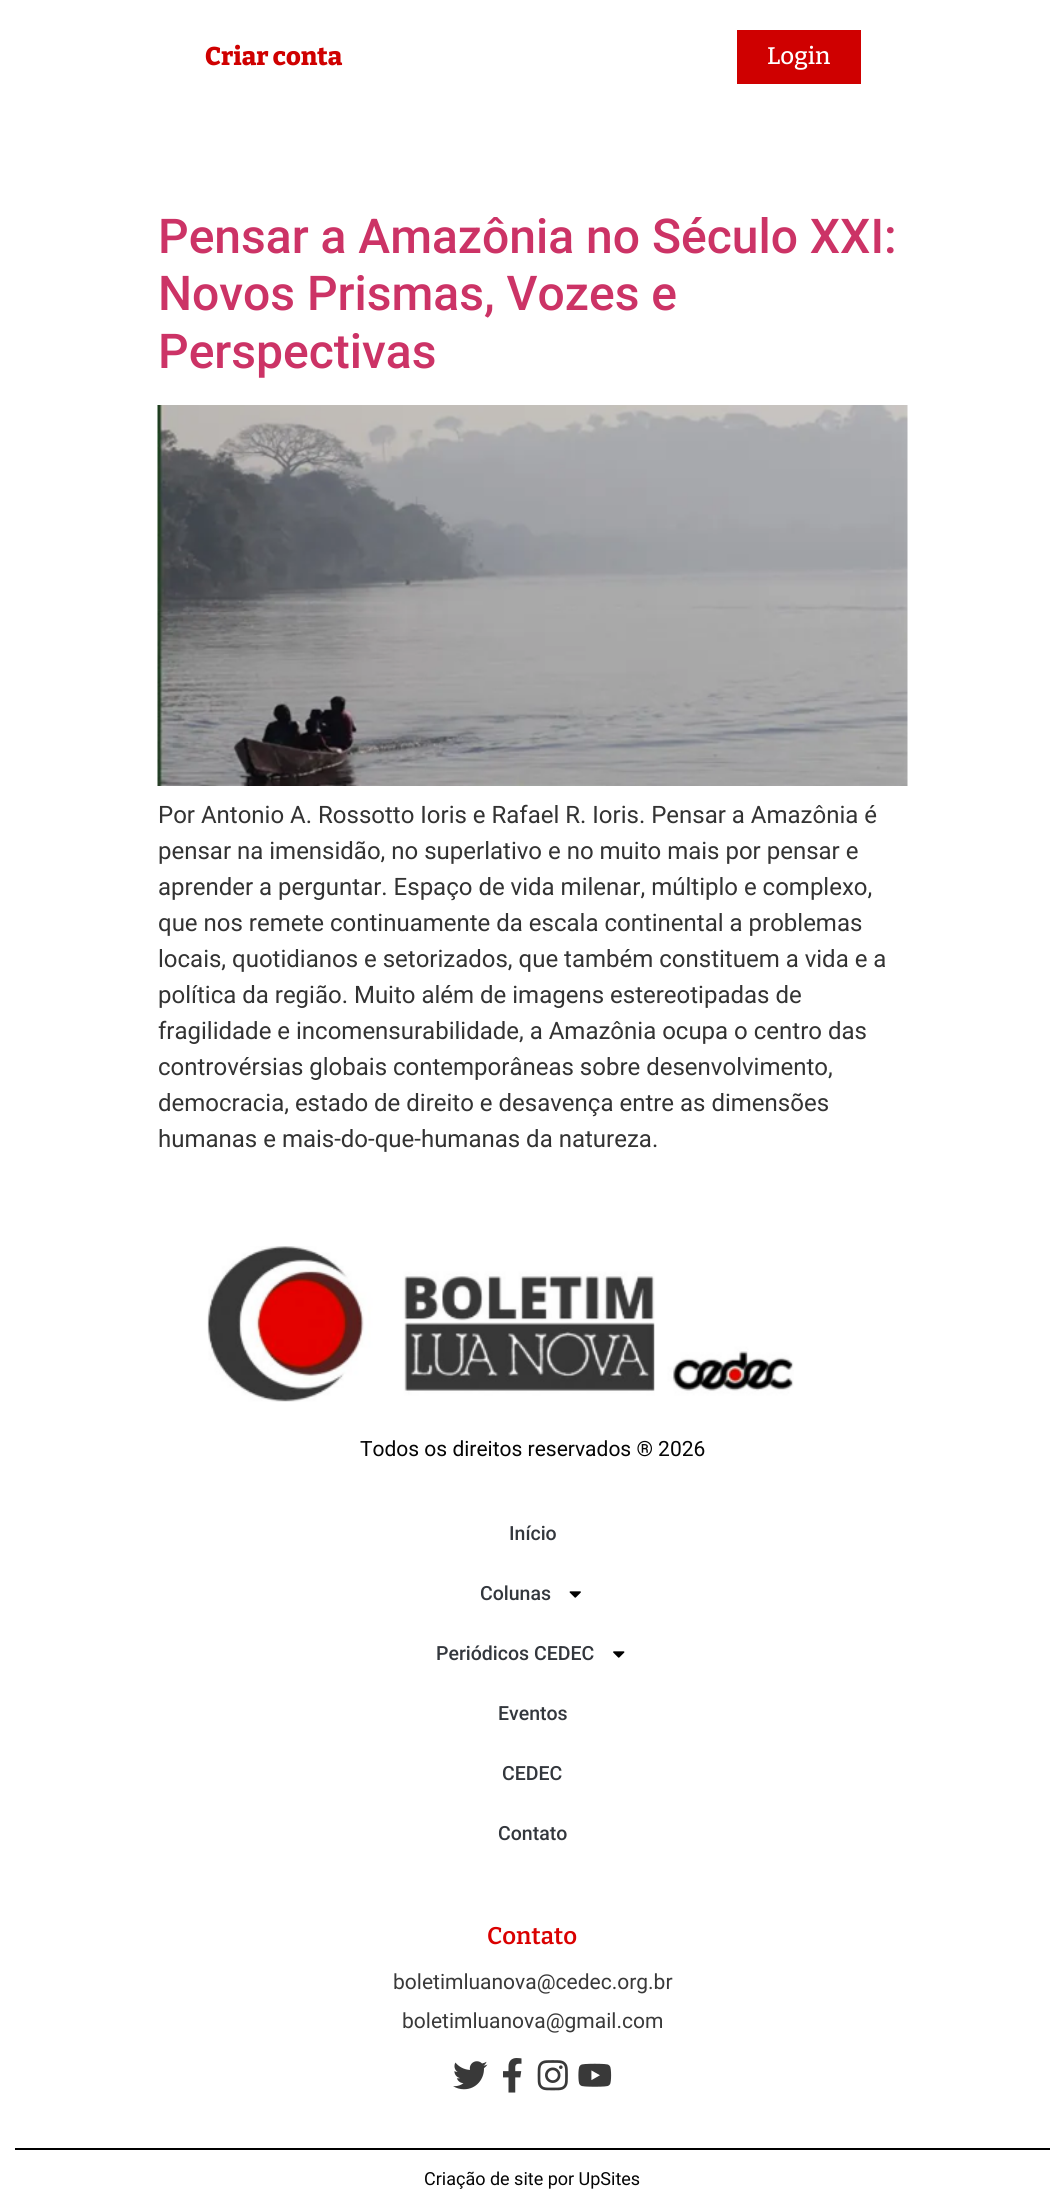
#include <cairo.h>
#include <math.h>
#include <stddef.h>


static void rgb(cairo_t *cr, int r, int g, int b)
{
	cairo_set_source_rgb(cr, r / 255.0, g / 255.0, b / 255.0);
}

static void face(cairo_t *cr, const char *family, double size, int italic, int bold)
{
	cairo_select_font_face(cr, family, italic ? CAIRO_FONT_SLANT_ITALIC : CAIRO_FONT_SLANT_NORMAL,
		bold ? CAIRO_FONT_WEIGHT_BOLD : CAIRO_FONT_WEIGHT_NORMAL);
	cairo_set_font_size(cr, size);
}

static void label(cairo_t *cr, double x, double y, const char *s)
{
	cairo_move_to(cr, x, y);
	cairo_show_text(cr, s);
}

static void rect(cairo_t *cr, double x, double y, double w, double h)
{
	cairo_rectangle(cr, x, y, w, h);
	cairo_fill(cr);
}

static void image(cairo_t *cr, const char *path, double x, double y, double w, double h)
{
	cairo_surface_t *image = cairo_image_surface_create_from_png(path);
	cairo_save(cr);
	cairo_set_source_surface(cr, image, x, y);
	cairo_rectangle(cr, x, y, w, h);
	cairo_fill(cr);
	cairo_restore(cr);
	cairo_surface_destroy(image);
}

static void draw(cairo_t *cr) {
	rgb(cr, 255, 255, 255);
	cairo_paint(cr);
	face(cr, "Bitter ExtraBold", 25.5, 0, 0);
	rgb(cr, 207, 0, 0);
	label(cr, 205, 65, "Criar conta");
	rect(cr, 737, 30, 124, 54);
	face(cr, "Bitter Medium", 24, 0, 0);
	rgb(cr, 255, 255, 255);
	label(cr, 767, 64, "Login");
	face(cr, "Roboto Medium", 48, 0, 0);
	rgb(cr, 204, 51, 102);
	label(cr, 158, 253, "Pensar a Amazônia no Século XXI:");
	label(cr, 158, 310, "Novos Prismas, Vozes e");
	label(cr, 158, 368, "Perspectivas");
	image(cr, "image0.png", 157, 405, 751, 381);
	face(cr, "Roboto", 24, 0, 0);
	rgb(cr, 51, 51, 51);
	label(cr, 158, 823, "Por Antonio A. Rossotto Ioris e Rafael R. Ioris. Pensar a Amazônia é");
	label(cr, 158, 859, "pensar na imensidão, no superlativo e no muito mais por pensar e");
	label(cr, 158, 895, "aprender a perguntar. Espaço de vida milenar, múltiplo e complexo,");
	label(cr, 158, 931, "que nos remete continuamente da escala continental a problemas");
	label(cr, 158, 967, "locais, quotidianos e setorizados, que também constituem a vida e a");
	label(cr, 158, 1003, "política da região. Muito além de imagens estereotipadas de");
	label(cr, 158, 1039, "fragilidade e incomensurabilidade, a Amazônia ocupa o centro das");
	label(cr, 158, 1075, "controvérsias globais contemporâneas sobre desenvolvimento,");
	label(cr, 158, 1111, "democracia, estado de direito e desavença entre as dimensões");
	label(cr, 158, 1147, "humanas e mais-do-que-humanas da natureza.");
	image(cr, "image1.png", 207, 1246, 587, 156);
	face(cr, "Roboto", 21, 0, 0);
	rgb(cr, 5, 5, 5);
	label(cr, 360, 1456, "Todos os direitos reservados ® 2026");
	face(cr, "Roboto Medium", 19.5, 0, 0);
	rgb(cr, 51, 55, 61);
	label(cr, 509, 1540, "Início");
	label(cr, 480, 1600, "Colunas");
	image(cr, "image2.png", 569, 1591, 12, 7);
	label(cr, 436, 1660, "Periódicos CEDEC");
	image(cr, "image3.png", 613, 1651, 12, 7);
	label(cr, 498, 1720, "Eventos");
	label(cr, 502, 1780, "CEDEC");
	label(cr, 498, 1840, "Contato");
	face(cr, "Bitter SemiBold", 24, 0, 0);
	rgb(cr, 218, 0, 0);
	label(cr, 487, 1944, "Contato");
	face(cr, "Roboto", 21, 0, 0);
	rgb(cr, 57, 57, 57);
	label(cr, 393, 1989, "boletimluanova@cedec.org.br");
	label(cr, 402, 2028, "boletimluanova@gmail.com");
	image(cr, "image4.png", 453, 2061, 35, 29);
	image(cr, "image5.png", 503, 2058, 19, 35);
	image(cr, "image6.png", 537, 2060, 31, 31);
	image(cr, "image7.png", 578, 2063, 34, 24);
	rgb(cr, 0, 0, 0);
	rect(cr, 15, 2148, 1035, 2);
	face(cr, "Roboto", 18, 0, 0);
	rgb(cr, 5, 5, 5);
	label(cr, 424, 2185, "Criação de site por UpSites");
}

int main(void) {
	cairo_surface_t *surface = cairo_image_surface_create(CAIRO_FORMAT_RGB24, 1064, 2203);
	cairo_t *cr = cairo_create(surface);
	cairo_font_options_t *options = cairo_font_options_create();
	cairo_font_options_set_hint_metrics(options, CAIRO_HINT_METRICS_OFF);
	cairo_font_options_set_hint_style(options, CAIRO_HINT_STYLE_NONE);
	cairo_set_font_options(cr, options);
	cairo_set_miter_limit(cr, 4);
	draw(cr);
	cairo_surface_write_to_png(surface, "render.png");
	cairo_font_options_destroy(options);
	cairo_destroy(cr);
	cairo_surface_destroy(surface);
	return 0;
}
